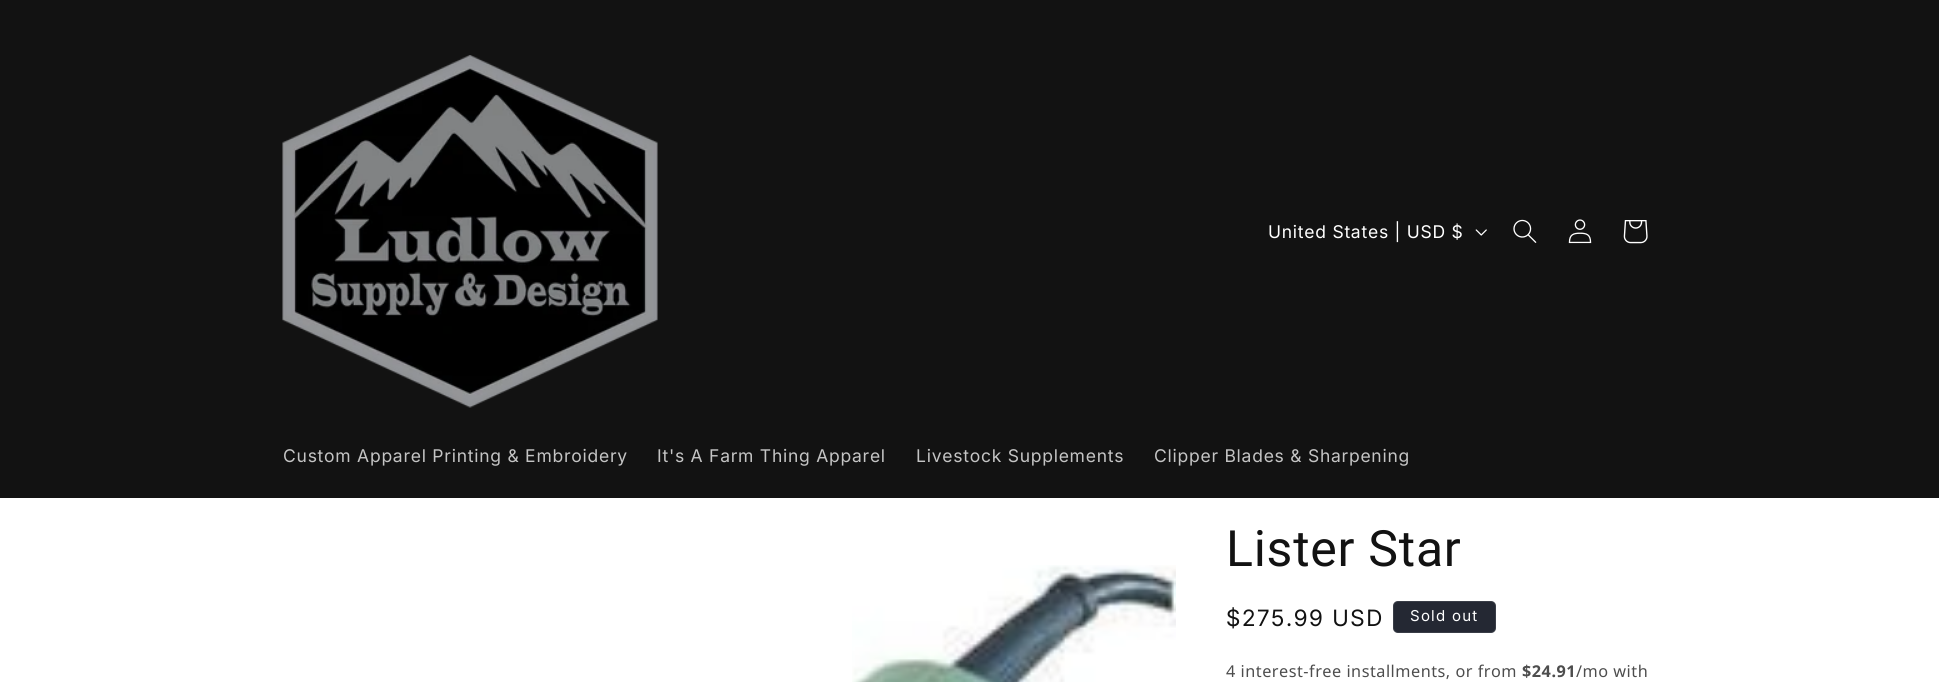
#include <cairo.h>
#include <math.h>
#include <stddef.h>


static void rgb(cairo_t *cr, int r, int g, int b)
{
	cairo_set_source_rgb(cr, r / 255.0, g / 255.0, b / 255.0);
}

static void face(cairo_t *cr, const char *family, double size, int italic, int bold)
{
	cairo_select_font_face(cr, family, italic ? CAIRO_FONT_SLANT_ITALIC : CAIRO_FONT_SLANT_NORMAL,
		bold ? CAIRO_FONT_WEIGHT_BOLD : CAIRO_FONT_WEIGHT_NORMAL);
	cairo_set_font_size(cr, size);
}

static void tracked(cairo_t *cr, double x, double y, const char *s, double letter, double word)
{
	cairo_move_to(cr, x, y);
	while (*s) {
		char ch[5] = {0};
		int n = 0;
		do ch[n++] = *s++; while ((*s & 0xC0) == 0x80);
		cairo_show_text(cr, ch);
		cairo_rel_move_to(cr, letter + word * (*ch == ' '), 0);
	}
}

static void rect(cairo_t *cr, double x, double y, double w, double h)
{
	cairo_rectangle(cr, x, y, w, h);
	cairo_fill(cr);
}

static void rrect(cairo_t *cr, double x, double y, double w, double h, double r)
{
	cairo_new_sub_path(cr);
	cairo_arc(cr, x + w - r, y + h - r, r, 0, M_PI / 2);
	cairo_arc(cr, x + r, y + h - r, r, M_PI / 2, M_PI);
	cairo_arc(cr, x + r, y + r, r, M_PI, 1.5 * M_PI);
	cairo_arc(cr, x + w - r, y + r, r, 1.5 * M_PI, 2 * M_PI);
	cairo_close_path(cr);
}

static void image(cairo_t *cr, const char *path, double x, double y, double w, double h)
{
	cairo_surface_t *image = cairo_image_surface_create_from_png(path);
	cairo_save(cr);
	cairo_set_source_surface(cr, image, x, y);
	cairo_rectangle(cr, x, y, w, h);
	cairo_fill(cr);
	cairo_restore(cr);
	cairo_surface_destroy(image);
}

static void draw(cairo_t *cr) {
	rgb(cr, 255, 255, 255);
	cairo_paint(cr);
	rgb(cr, 18, 18, 18);
	rect(cr, 0, 0, 1939, 498);
	image(cr, "image0.png", 282, 55, 376, 353);
	face(cr, "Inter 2", 17.5, 0, 0);
	rgb(cr, 255, 255, 255);
	tracked(cr, 1268, 238, "United States | USD $", 0.75, 0);
	image(cr, "image1.png", 1475, 229, 12, 7);
	image(cr, "image2.png", 1513, 219, 24, 24);
	image(cr, "image3.png", 1568, 219, 24, 25);
	image(cr, "image4.png", 1623, 220, 25, 24);
	rgb(cr, 196, 196, 196);
	tracked(cr, 283, 462, "Custom Apparel Printing & Embroidery", 0.75, 0);
	tracked(cr, 657, 462, "It's A Farm Thing Apparel", 0.75, 0);
	tracked(cr, 916, 462, "Livestock Supplements", 0.75, 0);
	tracked(cr, 1154, 462, "Clipper Blades & Sharpening", 0.75, 0);
	image(cr, "image5.png", 852, 565, 324, 117);
	face(cr, "Roboto", 50, 0, 0);
	rgb(cr, 18, 18, 18);
	tracked(cr, 1226, 566, "Lister Star", 0.75, 0);
	face(cr, "Inter", 22.5, 0, 0);
	tracked(cr, 1226, 626, "$275.99 USD", 1.6, 0);
	rgb(cr, 36, 40, 51);
	rrect(cr, 1393, 601, 103, 32, 5);
	cairo_fill(cr);
	rrect(cr, 1393.5, 601.5, 102, 31, 4.5);
	cairo_set_source_rgba(cr, 1, 1, 1, 0.1);
	cairo_set_line_width(cr, 1);
	cairo_stroke(cr);
	face(cr, "Inter 2", 15, 0, 0);
	rgb(cr, 255, 255, 255);
	tracked(cr, 1410, 621, "Sold out", 1.25, 0);
	face(cr, "Noto Sans", 16.25, 0, 0);
	rgb(cr, 77, 77, 77);
	tracked(cr, 1226, 677, "4 interest-free installments, or from", 0.5, 0);
	face(cr, "Noto Sans", 16.25, 0, 1);
	tracked(cr, 1522, 677, "$24.91", 0.5, 0);
	face(cr, "Noto Sans", 16.25, 0, 0);
	tracked(cr, 1576, 677, "/mo with", 0.5, 0);
}

int main(void) {
	cairo_surface_t *surface = cairo_image_surface_create(CAIRO_FORMAT_RGB24, 1939, 682);
	cairo_t *cr = cairo_create(surface);
	cairo_font_options_t *options = cairo_font_options_create();
	cairo_font_options_set_hint_metrics(options, CAIRO_HINT_METRICS_OFF);
	cairo_font_options_set_hint_style(options, CAIRO_HINT_STYLE_NONE);
	cairo_set_font_options(cr, options);
	cairo_set_miter_limit(cr, 4);
	draw(cr);
	cairo_surface_write_to_png(surface, "render.png");
	cairo_font_options_destroy(options);
	cairo_destroy(cr);
	cairo_surface_destroy(surface);
	return 0;
}
